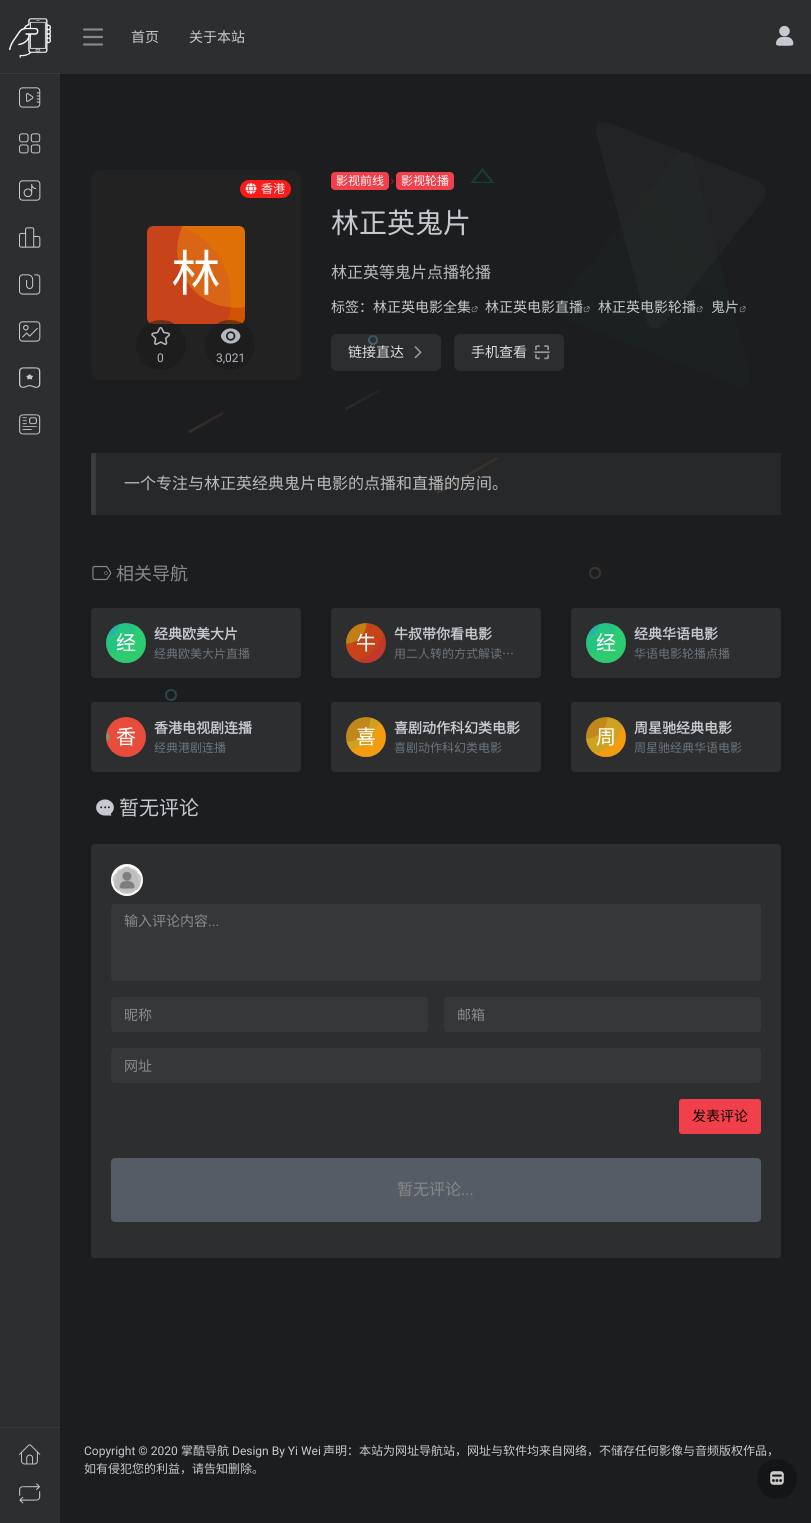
#include <cairo.h>
#include <math.h>
#include <stddef.h>


static void rgb(cairo_t *cr, int r, int g, int b)
{
	cairo_set_source_rgb(cr, r / 255.0, g / 255.0, b / 255.0);
}

static void face(cairo_t *cr, const char *family, double size, int italic, int bold)
{
	cairo_select_font_face(cr, family, italic ? CAIRO_FONT_SLANT_ITALIC : CAIRO_FONT_SLANT_NORMAL,
		bold ? CAIRO_FONT_WEIGHT_BOLD : CAIRO_FONT_WEIGHT_NORMAL);
	cairo_set_font_size(cr, size);
}

static void label(cairo_t *cr, double x, double y, const char *s)
{
	cairo_move_to(cr, x, y);
	cairo_show_text(cr, s);
}

static void rect(cairo_t *cr, double x, double y, double w, double h)
{
	cairo_rectangle(cr, x, y, w, h);
	cairo_fill(cr);
}

static void rrect(cairo_t *cr, double x, double y, double w, double h, double r)
{
	cairo_new_sub_path(cr);
	cairo_arc(cr, x + w - r, y + h - r, r, 0, M_PI / 2);
	cairo_arc(cr, x + r, y + h - r, r, M_PI / 2, M_PI);
	cairo_arc(cr, x + r, y + r, r, M_PI, 1.5 * M_PI);
	cairo_arc(cr, x + w - r, y + r, r, 1.5 * M_PI, 2 * M_PI);
	cairo_close_path(cr);
}

static void image(cairo_t *cr, const char *path, double x, double y, double w, double h)
{
	cairo_surface_t *image = cairo_image_surface_create_from_png(path);
	cairo_save(cr);
	cairo_set_source_surface(cr, image, x, y);
	cairo_rectangle(cr, x, y, w, h);
	cairo_fill(cr);
	cairo_restore(cr);
	cairo_surface_destroy(image);
}

static void draw(cairo_t *cr) {
	cairo_pattern_t *gradient;
	rgb(cr, 27, 29, 31);
	cairo_paint(cr);
	rgb(cr, 38, 40, 42);
	rect(cr, 96, 453, 685, 62);
	rgb(cr, 44, 46, 47);
	rect(cr, 0, 0, 60, 1523);
	rgb(cr, 57, 58, 59);
	rect(cr, 0, 73, 60, 1);
	image(cr, "image0.png", 8, 18, 44, 40);
	image(cr, "image1.png", 19, 87, 22, 21);
	image(cr, "image2.png", 19, 133, 22, 21);
	image(cr, "image3.png", 19, 180, 22, 21);
	image(cr, "image4.png", 19, 227, 22, 21);
	image(cr, "image5.png", 19, 274, 22, 21);
	image(cr, "image6.png", 19, 321, 22, 21);
	image(cr, "image7.png", 19, 367, 22, 21);
	image(cr, "image8.png", 19, 414, 22, 21);
	rect(cr, 0, 1427, 60, 1);
	image(cr, "image9.png", 19, 1444, 22, 21);
	image(cr, "image10.png", 19, 1483, 22, 21);
	rgb(cr, 44, 46, 47);
	rect(cr, 60, 0, 751, 74);
	cairo_new_path(cr);
	cairo_move_to(cr, 84, 29.5);
	cairo_line_to(cr, 102, 29.5);
	cairo_move_to(cr, 84, 37);
	cairo_line_to(cr, 102, 37);
	cairo_move_to(cr, 84, 44.5);
	cairo_line_to(cr, 102, 44.5);
	rgb(cr, 136, 136, 136);
	cairo_set_line_width(cr, 2.2);
	cairo_set_line_cap(cr, CAIRO_LINE_CAP_ROUND);
	cairo_set_line_join(cr, CAIRO_LINE_JOIN_ROUND);
	cairo_stroke(cr);
	face(cr, "Noto Sans CJK SC", 14, 0, 0);
	rgb(cr, 198, 201, 207);
	label(cr, 131, 42, "首页");
	label(cr, 189, 42, "关于本站");
	image(cr, "image11.png", 776, 25, 18, 21);
	gradient = cairo_pattern_create_linear(722, 122, 575, 231);
	cairo_pattern_add_color_stop_rgba(gradient, 0, 0.133, 0.137, 0.145, 1);
	cairo_pattern_add_color_stop_rgba(gradient, 1, 0.133, 0.141, 0.145, 1);
	cairo_set_source(cr, gradient);
	cairo_pattern_destroy(gradient);
	cairo_set_fill_rule(cr, CAIRO_FILL_RULE_EVEN_ODD);
	cairo_new_path(cr);
	cairo_move_to(cr, 646, 319);
	cairo_line_to(cr, 597, 136);
	cairo_curve_to(cr, 594, 125, 600, 120, 611, 124);
	cairo_line_to(cr, 756, 180);
	cairo_curve_to(cr, 766, 184, 769, 194, 762, 202);
	cairo_line_to(cr, 664, 323);
	cairo_curve_to(cr, 657, 332, 649, 330, 646, 319);
	cairo_close_path(cr);
	cairo_fill(cr);
	cairo_save(cr);
	cairo_set_fill_rule(cr, CAIRO_FILL_RULE_WINDING);
	cairo_rectangle(cr, 470, 168, 26, 15);
	cairo_clip(cr);
	cairo_new_path(cr);
	cairo_move_to(cr, 493, 183);
	cairo_line_to(cr, 482.5, 169.5);
	cairo_line_to(cr, 472, 182.5);
	cairo_close_path(cr);
	gradient = cairo_pattern_create_linear(472, 171, 493, 182);
	cairo_pattern_add_color_stop_rgba(gradient, 0, 0.227, 0.29, 0.278, 1);
	cairo_pattern_add_color_stop_rgba(gradient, 0, 0.086, 0.247, 0.22, 1);
	cairo_set_source(cr, gradient);
	cairo_pattern_destroy(gradient);
	cairo_set_line_width(cr, 2);
	cairo_set_line_cap(cr, CAIRO_LINE_CAP_BUTT);
	cairo_set_line_join(cr, CAIRO_LINE_JOIN_MITER);
	cairo_stroke(cr);
	cairo_restore(cr);
	gradient = cairo_pattern_create_linear(693, 152, 532, 288);
	cairo_pattern_add_color_stop_rgba(gradient, 0, 0.176, 0.239, 0.165, 0.11);
	cairo_pattern_add_color_stop_rgba(gradient, 1, 0.102, 0.22, 0.169, 0.11);
	cairo_set_source(cr, gradient);
	cairo_pattern_destroy(gradient);
	cairo_new_path(cr);
	cairo_move_to(cr, 693, 162);
	cairo_line_to(cr, 750, 373);
	cairo_curve_to(cr, 753, 384, 747, 389, 737, 386);
	cairo_line_to(cr, 569, 321);
	cairo_curve_to(cr, 558, 317, 556, 307, 563, 298);
	cairo_line_to(cr, 676, 158);
	cairo_curve_to(cr, 683, 149, 691, 151, 693, 162);
	cairo_close_path(cr);
	cairo_fill(cr);
	cairo_arc(cr, 373, 340, 4, 0, 2 * M_PI);
	gradient = cairo_pattern_create_linear(373, 336, 373, 344);
	cairo_pattern_add_color_stop_rgba(gradient, 0, 0.141, 0.302, 0.384, 1);
	cairo_pattern_add_color_stop_rgba(gradient, 1, 0.267, 0.361, 0.384, 1);
	cairo_set_source(cr, gradient);
	cairo_pattern_destroy(gradient);
	cairo_set_line_width(cr, 2);
	cairo_set_line_cap(cr, CAIRO_LINE_CAP_BUTT);
	cairo_set_line_join(cr, CAIRO_LINE_JOIN_MITER);
	cairo_stroke(cr);
	gradient = cairo_pattern_create_linear(346, 409, 380, 389);
	cairo_pattern_add_color_stop_rgba(gradient, 0, 0.153, 0.173, 0.184, 1);
	cairo_pattern_add_color_stop_rgba(gradient, 1, 0.098, 0.149, 0.184, 1);
	cairo_set_source(cr, gradient);
	cairo_pattern_destroy(gradient);
	cairo_new_path(cr);
	cairo_move_to(cr, 346, 407.5);
	cairo_line_to(cr, 379, 389);
	cairo_line_to(cr, 380, 389.5);
	cairo_curve_to(cr, 382, 391.5, 377.5, 393, 374.5, 394.5);
	cairo_line_to(cr, 347, 410);
	cairo_curve_to(cr, 345.5, 410.5, 345, 408, 346, 407.5);
	cairo_close_path(cr);
	cairo_fill(cr);
	gradient = cairo_pattern_create_linear(189, 433, 223, 413);
	cairo_pattern_add_color_stop_rgba(gradient, 0, 0.2, 0.188, 0.173, 1);
	cairo_pattern_add_color_stop_rgba(gradient, 1, 0.2, 0.149, 0.157, 1);
	cairo_set_source(cr, gradient);
	cairo_pattern_destroy(gradient);
	cairo_new_path(cr);
	cairo_move_to(cr, 189, 430.5);
	cairo_line_to(cr, 222, 412);
	cairo_line_to(cr, 223, 412.5);
	cairo_curve_to(cr, 225, 414.5, 220.5, 416, 217.5, 417.5);
	cairo_line_to(cr, 190, 433);
	cairo_curve_to(cr, 188.5, 433.5, 188, 431, 189, 430.5);
	cairo_close_path(cr);
	cairo_fill(cr);
	gradient = cairo_pattern_create_linear(437, 493, 497, 458);
	cairo_pattern_add_color_stop_rgba(gradient, 0, 0.22, 0.216, 0.2, 1);
	cairo_pattern_add_color_stop_rgba(gradient, 1, 0.22, 0.188, 0.153, 1);
	cairo_set_source(cr, gradient);
	cairo_pattern_destroy(gradient);
	cairo_new_path(cr);
	cairo_move_to(cr, 437, 491);
	cairo_line_to(cr, 496, 457);
	cairo_curve_to(cr, 497, 457, 498, 458, 498, 459);
	cairo_line_to(cr, 497, 460);
	cairo_line_to(cr, 438, 494);
	cairo_curve_to(cr, 437, 494, 436, 492, 437, 491);
	cairo_close_path(cr);
	cairo_fill(cr);
	cairo_arc(cr, 595, 573, 5, 0, 2 * M_PI);
	gradient = cairo_pattern_create_linear(595, 568, 595, 578);
	cairo_pattern_add_color_stop_rgba(gradient, 0, 0.239, 0.224, 0.145, 1);
	cairo_pattern_add_color_stop_rgba(gradient, 0, 0.235, 0.2, 0.196, 1);
	cairo_set_source(cr, gradient);
	cairo_pattern_destroy(gradient);
	cairo_stroke(cr);
	cairo_arc(cr, 171, 695, 5, 0, 2 * M_PI);
	gradient = cairo_pattern_create_linear(171, 690, 171, 700);
	cairo_pattern_add_color_stop_rgba(gradient, 0, 0.125, 0.286, 0.149, 1);
	cairo_pattern_add_color_stop_rgba(gradient, 0, 0.176, 0.275, 0.294, 1);
	cairo_set_source(cr, gradient);
	cairo_pattern_destroy(gradient);
	cairo_stroke(cr);
	rgb(cr, 34, 34, 34);
	rrect(cr, 91, 170, 210, 210, 10);
	cairo_fill(cr);
	rgb(cr, 252, 27, 27);
	rrect(cr, 240, 180, 51, 18, 9);
	cairo_fill(cr);
	image(cr, "image12.png", 245, 183, 12, 11);
	face(cr, "Noto Sans CJK SC", 12, 0, 0);
	rgb(cr, 255, 255, 255);
	label(cr, 261, 193, "香港");
	image(cr, "image13.png", 147, 226, 98, 98);
	cairo_set_source_rgba(cr, 0.094, 0.098, 0.102, 0.5);
	cairo_arc(cr, 161, 345, 25, 0, 2 * M_PI);
	cairo_fill(cr);
	image(cr, "image14.png", 151, 327, 19, 18);
	face(cr, "Roboto", 12, 0, 0);
	rgb(cr, 178, 184, 190);
	label(cr, 157, 362, "0");
	cairo_set_source_rgba(cr, 0.094, 0.098, 0.102, 0.5);
	cairo_new_path(cr);
	cairo_arc(cr, 230, 345, 25, 0, 2 * M_PI);
	cairo_fill(cr);
	image(cr, "image15.png", 220, 328, 21, 16);
	rgb(cr, 178, 184, 190);
	label(cr, 216, 362, "3,021");
	rgb(cr, 241, 64, 75);
	rrect(cr, 331, 172, 58, 18, 4);
	cairo_fill(cr);
	face(cr, "Noto Sans CJK SC", 12, 0, 0);
	rgb(cr, 255, 255, 255);
	label(cr, 336, 185, "影视前线");
	image(cr, "image16.png", 391, 179, 3, 5);
	rgb(cr, 241, 64, 75);
	rrect(cr, 396, 172, 58, 18, 4);
	cairo_fill(cr);
	rgb(cr, 255, 255, 255);
	label(cr, 401, 185, "影视轮播");
	face(cr, "Noto Sans CJK SC", 28, 0, 0);
	rgb(cr, 198, 201, 207);
	label(cr, 331, 233, "林正英鬼片");
	face(cr, "Noto Sans CJK SC", 16, 0, 0);
	rgb(cr, 187, 187, 187);
	label(cr, 331, 278, "林正英等鬼片点播轮播");
	face(cr, "Noto Sans CJK SC", 14, 0, 0);
	rgb(cr, 198, 201, 207);
	label(cr, 331, 312, "标签：林正英电影全集");
	image(cr, "image17.png", 471, 306, 7, 7);
	label(cr, 485, 312, "林正英电影直播");
	image(cr, "image18.png", 583, 306, 7, 7);
	label(cr, 598, 312, "林正英电影轮播");
	image(cr, "image19.png", 696, 306, 7, 7);
	label(cr, 711, 312, "鬼片");
	image(cr, "image17.png", 739, 306, 7, 7);
	cairo_set_source_rgba(cr, 0.541, 0.541, 0.541, 0.15);
	rrect(cr, 331, 334, 110, 37, 6);
	cairo_fill(cr);
	rgb(cr, 221, 221, 221);
	label(cr, 348, 357, "链接直达");
	image(cr, "image20.png", 414, 346, 8, 13);
	rgb(cr, 44, 45, 47);
	rrect(cr, 454, 334, 110, 37, 6);
	cairo_fill(cr);
	rgb(cr, 221, 221, 221);
	label(cr, 471, 357, "手机查看");
	image(cr, "image21.png", 534, 345, 16, 15);
	rgb(cr, 58, 59, 60);
	rect(cr, 91, 453, 5, 62);
	face(cr, "Noto Sans CJK SC", 16, 0, 0);
	rgb(cr, 187, 187, 187);
	label(cr, 124, 489, "一个专注与林正英经典鬼片电影的点播和直播的房间。");
	image(cr, "image22.png", 92, 565, 20, 16);
	face(cr, "Noto Sans CJK SC", 18, 0, 0);
	rgb(cr, 136, 136, 136);
	label(cr, 116, 580, "相关导航");
	rgb(cr, 44, 46, 47);
	rrect(cr, 91, 608, 210, 70, 4);
	cairo_fill(cr);
	rgb(cr, 52, 54, 55);
	cairo_arc(cr, 126, 643, 20, 0, 2 * M_PI);
	cairo_fill(cr);
	image(cr, "image23.png", 106, 623, 40, 40);
	face(cr, "Noto Sans CJK SC", 14, 0, 1);
	rgb(cr, 198, 201, 207);
	label(cr, 154, 639, "经典欧美大片");
	face(cr, "Noto Sans CJK SC", 12, 0, 0);
	rgb(cr, 108, 117, 125);
	label(cr, 154, 658, "经典欧美大片直播");
	rgb(cr, 44, 46, 47);
	rrect(cr, 331, 608, 210, 70, 4);
	cairo_fill(cr);
	rgb(cr, 52, 54, 55);
	cairo_arc(cr, 366, 643, 20, 0, 2 * M_PI);
	cairo_fill(cr);
	image(cr, "image24.png", 346, 623, 40, 40);
	face(cr, "Noto Sans CJK SC", 14, 0, 1);
	rgb(cr, 198, 201, 207);
	label(cr, 394, 639, "牛叔带你看电影");
	face(cr, "Noto Sans CJK SC", 12, 0, 0);
	rgb(cr, 108, 117, 125);
	label(cr, 394, 658, "用二人转的方式解读…");
	rgb(cr, 44, 46, 47);
	rrect(cr, 571, 608, 210, 70, 4);
	cairo_fill(cr);
	rgb(cr, 52, 54, 55);
	cairo_arc(cr, 606, 643, 20, 0, 2 * M_PI);
	cairo_fill(cr);
	image(cr, "image23.png", 586, 623, 40, 40);
	face(cr, "Noto Sans CJK SC", 14, 0, 1);
	rgb(cr, 198, 201, 207);
	label(cr, 634, 639, "经典华语电影");
	face(cr, "Noto Sans CJK SC", 12, 0, 0);
	rgb(cr, 108, 117, 125);
	label(cr, 634, 658, "华语电影轮播点播");
	rgb(cr, 44, 46, 47);
	rrect(cr, 91, 702, 210, 70, 4);
	cairo_fill(cr);
	rgb(cr, 52, 54, 55);
	cairo_arc(cr, 126, 737, 20, 0, 2 * M_PI);
	cairo_fill(cr);
	image(cr, "image25.png", 106, 717, 40, 40);
	face(cr, "Noto Sans CJK SC", 14, 0, 1);
	rgb(cr, 198, 201, 207);
	label(cr, 154, 733, "香港电视剧连播");
	face(cr, "Noto Sans CJK SC", 12, 0, 0);
	rgb(cr, 108, 117, 125);
	label(cr, 154, 752, "经典港剧连播");
	rgb(cr, 44, 46, 47);
	rrect(cr, 331, 702, 210, 70, 4);
	cairo_fill(cr);
	rgb(cr, 52, 54, 55);
	cairo_arc(cr, 366, 737, 20, 0, 2 * M_PI);
	cairo_fill(cr);
	image(cr, "image26.png", 346, 717, 40, 40);
	face(cr, "Noto Sans CJK SC", 14, 0, 1);
	rgb(cr, 198, 201, 207);
	label(cr, 394, 733, "喜剧动作科幻类电影");
	face(cr, "Noto Sans CJK SC", 12, 0, 0);
	rgb(cr, 108, 117, 125);
	label(cr, 394, 752, "喜剧动作科幻类电影");
	rgb(cr, 44, 46, 47);
	rrect(cr, 571, 702, 210, 70, 4);
	cairo_fill(cr);
	rgb(cr, 52, 54, 55);
	cairo_arc(cr, 606, 737, 20, 0, 2 * M_PI);
	cairo_fill(cr);
	image(cr, "image27.png", 586, 717, 40, 40);
	face(cr, "Noto Sans CJK SC", 14, 0, 1);
	rgb(cr, 198, 201, 207);
	label(cr, 634, 733, "周星驰经典电影");
	face(cr, "Noto Sans CJK SC", 12, 0, 0);
	rgb(cr, 108, 117, 125);
	label(cr, 634, 752, "周星驰经典华语电影");
	image(cr, "image28.png", 96, 799, 18, 17);
	face(cr, "Noto Sans CJK SC", 20, 0, 0);
	rgb(cr, 198, 201, 207);
	label(cr, 119, 815, "暂无评论");
	rgb(cr, 44, 46, 47);
	rrect(cr, 91, 844, 690, 414, 4);
	cairo_fill(cr);
	image(cr, "image29.png", 111, 864, 32, 32);
	rgb(cr, 54, 55, 56);
	rrect(cr, 111, 904, 650, 77, 4);
	cairo_fill(cr);
	face(cr, "Noto Sans CJK SC", 14, 0, 0);
	rgb(cr, 136, 138, 143);
	label(cr, 124, 926, "输入评论内容");
	face(cr, "Roboto", 14, 0, 0);
	label(cr, 208, 926, "...");
	rgb(cr, 54, 55, 56);
	rrect(cr, 111, 997, 317, 35, 4);
	cairo_fill(cr);
	face(cr, "Noto Sans CJK SC", 14, 0, 0);
	rgb(cr, 136, 138, 143);
	label(cr, 124, 1020, "昵称");
	rgb(cr, 54, 55, 56);
	rrect(cr, 444, 997, 317, 35, 4);
	cairo_fill(cr);
	rgb(cr, 136, 138, 143);
	label(cr, 457, 1020, "邮箱");
	rgb(cr, 54, 55, 56);
	rrect(cr, 111, 1048, 650, 35, 4);
	cairo_fill(cr);
	rgb(cr, 136, 138, 143);
	label(cr, 124, 1071, "网址");
	rgb(cr, 241, 64, 75);
	rrect(cr, 679.5, 1099.5, 81, 34, 2.5);
	cairo_fill_preserve(cr);
	cairo_set_line_width(cr, 1);
	cairo_stroke(cr);
	rgb(cr, 10, 0, 0);
	label(cr, 692, 1121, "发表评论");
	rgb(cr, 72, 81, 93);
	rrect(cr, 111, 1158, 650, 64, 4);
	cairo_fill(cr);
	cairo_set_source_rgba(cr, 0.533, 0.533, 0.533, 0.2);
	rrect(cr, 111, 1158, 650, 64, 5);
	cairo_fill(cr);
	face(cr, "Noto Sans CJK SC", 16, 0, 0);
	rgb(cr, 136, 136, 136);
	label(cr, 397, 1195, "暂无评论");
	face(cr, "Roboto", 16, 0, 0);
	label(cr, 461, 1195, "...");
	face(cr, "Roboto", 12, 0, 0);
	rgb(cr, 198, 201, 207);
	label(cr, 84, 1455, "Copyright © 2020");
	face(cr, "Noto Sans CJK SC", 12, 0, 0);
	label(cr, 181, 1455, "掌酷导航");
	face(cr, "Roboto", 12, 0, 0);
	label(cr, 232, 1455, "Design By Yi Wei");
	face(cr, "Noto Sans CJK SC", 12, 0, 0);
	label(cr, 323, 1455, "声明：本站为网址导航站，网址与软件均来自网络，不储存任何影像与音频版权作品，");
	label(cr, 84, 1473, "如有侵犯您的利益，请告知删除。");
	rgb(cr, 20, 21, 23);
	cairo_new_path(cr);
	cairo_arc(cr, 777, 1479, 20, 0, 2 * M_PI);
	cairo_fill(cr);
	image(cr, "image30.png", 770, 1471, 14, 14);
}

int main(void) {
	cairo_surface_t *surface = cairo_image_surface_create(CAIRO_FORMAT_RGB24, 811, 1523);
	cairo_t *cr = cairo_create(surface);
	cairo_font_options_t *options = cairo_font_options_create();
	cairo_font_options_set_hint_metrics(options, CAIRO_HINT_METRICS_OFF);
	cairo_font_options_set_hint_style(options, CAIRO_HINT_STYLE_NONE);
	cairo_set_font_options(cr, options);
	cairo_set_miter_limit(cr, 4);
	draw(cr);
	cairo_surface_write_to_png(surface, "render.png");
	cairo_font_options_destroy(options);
	cairo_destroy(cr);
	cairo_surface_destroy(surface);
	return 0;
}
